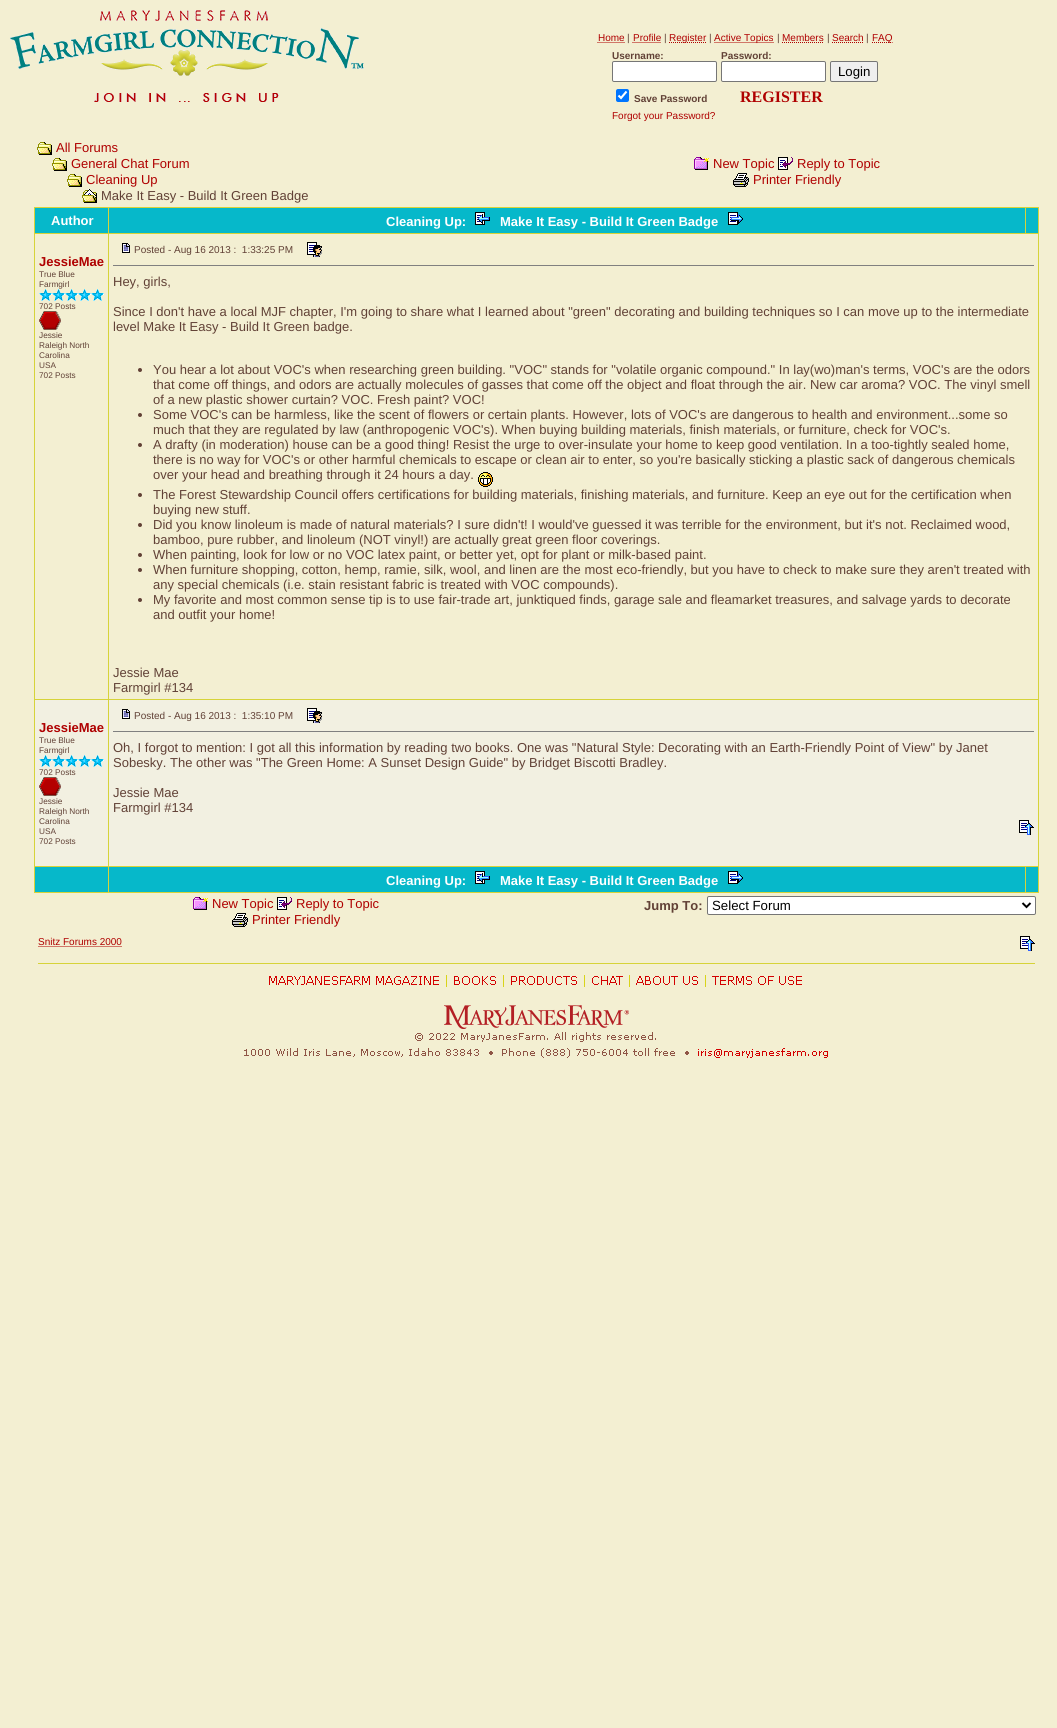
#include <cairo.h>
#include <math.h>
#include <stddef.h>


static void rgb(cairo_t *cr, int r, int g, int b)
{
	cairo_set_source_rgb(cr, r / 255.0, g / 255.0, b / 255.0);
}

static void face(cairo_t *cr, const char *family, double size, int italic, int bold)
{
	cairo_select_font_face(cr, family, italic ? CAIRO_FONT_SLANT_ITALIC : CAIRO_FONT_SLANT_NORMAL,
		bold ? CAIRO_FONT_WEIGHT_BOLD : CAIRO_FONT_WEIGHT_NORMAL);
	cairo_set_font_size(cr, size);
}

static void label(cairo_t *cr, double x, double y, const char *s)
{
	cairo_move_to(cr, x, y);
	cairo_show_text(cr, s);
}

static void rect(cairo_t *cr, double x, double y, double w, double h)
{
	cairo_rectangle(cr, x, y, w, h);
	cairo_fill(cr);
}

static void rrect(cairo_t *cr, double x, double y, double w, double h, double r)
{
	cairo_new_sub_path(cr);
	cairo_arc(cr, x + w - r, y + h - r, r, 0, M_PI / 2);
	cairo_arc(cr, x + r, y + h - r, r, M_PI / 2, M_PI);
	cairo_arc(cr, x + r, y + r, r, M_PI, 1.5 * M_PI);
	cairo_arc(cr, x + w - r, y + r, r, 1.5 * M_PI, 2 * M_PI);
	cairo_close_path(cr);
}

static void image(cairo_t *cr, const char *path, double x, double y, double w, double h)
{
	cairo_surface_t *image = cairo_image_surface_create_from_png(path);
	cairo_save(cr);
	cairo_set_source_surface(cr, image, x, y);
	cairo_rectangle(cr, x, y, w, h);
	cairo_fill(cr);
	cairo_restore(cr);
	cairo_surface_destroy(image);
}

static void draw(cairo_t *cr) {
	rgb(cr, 243, 239, 210);
	cairo_paint(cr);
	image(cr, "image0.png", 10, 10, 354, 66);
	image(cr, "image1.png", 94, 93, 185, 9);
	face(cr, "Liberation Sans", 10, 0, 0);
	rgb(cr, 175, 0, 0);
	label(cr, 598, 41, "Home");
	cairo_new_path(cr);
	cairo_move_to(cr, 597.5, 42.5);
	cairo_line_to(cr, 624.5, 42.5);
	cairo_set_line_width(cr, 1);
	cairo_set_dash(cr, (double[]){1, 1}, 2, 0);
	cairo_stroke(cr);
	rgb(cr, 97, 65, 54);
	label(cr, 627, 41, "|");
	rgb(cr, 175, 0, 0);
	label(cr, 633, 41, "Profile");
	cairo_new_path(cr);
	cairo_move_to(cr, 632.5, 42.5);
	cairo_line_to(cr, 661, 42.5);
	cairo_stroke(cr);
	rgb(cr, 97, 65, 54);
	label(cr, 664, 41, "|");
	cairo_new_path(cr);
	cairo_move_to(cr, 669, 42.5);
	cairo_line_to(cr, 706.5, 42.5);
	rgb(cr, 175, 0, 0);
	cairo_stroke(cr);
	label(cr, 669, 41, "Register");
	rgb(cr, 97, 65, 54);
	label(cr, 709, 41, "|");
	cairo_new_path(cr);
	cairo_move_to(cr, 714.5, 42.5);
	cairo_line_to(cr, 774, 42.5);
	rgb(cr, 175, 0, 0);
	cairo_stroke(cr);
	label(cr, 714, 41, "Active Topics");
	rgb(cr, 97, 65, 54);
	label(cr, 777, 41, "|");
	rgb(cr, 175, 0, 0);
	label(cr, 782, 41, "Members");
	cairo_new_path(cr);
	cairo_move_to(cr, 782, 42.5);
	cairo_line_to(cr, 824, 42.5);
	cairo_stroke(cr);
	rgb(cr, 97, 65, 54);
	label(cr, 827, 41, "|");
	rgb(cr, 175, 0, 0);
	label(cr, 832, 41, "Search");
	cairo_new_path(cr);
	cairo_move_to(cr, 832, 42.5);
	cairo_line_to(cr, 863.5, 42.5);
	cairo_stroke(cr);
	rgb(cr, 97, 65, 54);
	label(cr, 866, 41, "|");
	cairo_new_path(cr);
	cairo_move_to(cr, 872, 42.5);
	cairo_line_to(cr, 892.5, 42.5);
	rgb(cr, 175, 0, 0);
	cairo_stroke(cr);
	label(cr, 872, 41, "FAQ");
	face(cr, "Liberation Sans", 10, 0, 1);
	rgb(cr, 97, 65, 54);
	label(cr, 612, 59, "Username:");
	rgb(cr, 255, 255, 255);
	rrect(cr, 612.5, 61.5, 104, 20, 1.5);
	cairo_fill_preserve(cr);
	rgb(cr, 118, 118, 118);
	cairo_set_dash(cr, NULL, 0, 0);
	cairo_stroke(cr);
	rgb(cr, 97, 65, 54);
	label(cr, 721, 59, "Password:");
	rgb(cr, 255, 255, 255);
	rrect(cr, 721.5, 61.5, 104, 20, 1.5);
	cairo_fill_preserve(cr);
	rgb(cr, 118, 118, 118);
	cairo_stroke(cr);
	rgb(cr, 239, 239, 239);
	rrect(cr, 830.5, 61.5, 47, 20, 1.5);
	cairo_fill_preserve(cr);
	rgb(cr, 118, 118, 118);
	cairo_stroke(cr);
	face(cr, "Liberation Sans", 13.25, 0, 0);
	rgb(cr, 0, 0, 0);
	label(cr, 838, 76, "Login");
	rgb(cr, 0, 117, 255);
	rrect(cr, 616, 89, 13, 13, 2);
	cairo_fill(cr);
	cairo_new_path(cr);
	cairo_move_to(cr, 618.5, 95.5);
	cairo_line_to(cr, 621, 98);
	cairo_line_to(cr, 626.5, 91.5);
	rgb(cr, 255, 255, 255);
	cairo_set_line_width(cr, 2.1);
	cairo_stroke(cr);
	face(cr, "Liberation Sans", 10, 0, 1);
	rgb(cr, 97, 65, 54);
	label(cr, 634, 102, "Save Password");
	face(cr, "Liberation Serif", 16, 0, 1);
	rgb(cr, 175, 0, 0);
	label(cr, 740, 102, "REGISTER");
	face(cr, "Liberation Sans", 10, 0, 0);
	label(cr, 612, 119, "Forgot your Password?");
	image(cr, "image2.png", 37, 142, 15, 13);
	face(cr, "Liberation Sans", 13, 0, 0);
	label(cr, 56, 152, "All Forums");
	image(cr, "image2.png", 52, 158, 15, 13);
	label(cr, 71, 168, "General Chat Forum");
	image(cr, "image2.png", 67, 174, 15, 13);
	label(cr, 86, 184, "Cleaning Up");
	image(cr, "image3.png", 82, 189, 15, 14);
	rgb(cr, 97, 65, 54);
	label(cr, 101, 200, "Make It Easy - Build It Green Badge");
	image(cr, "image4.png", 694, 157, 15, 13);
	rgb(cr, 175, 0, 0);
	label(cr, 713, 168, "New Topic");
	image(cr, "image5.png", 778, 157, 15, 13);
	label(cr, 797, 168, "Reply to Topic");
	image(cr, "image6.png", 733, 173, 16, 14);
	label(cr, 753, 184, "Printer Friendly");
	rgb(cr, 214, 211, 57);
	rect(cr, 34, 207, 1005, 686);
	rgb(cr, 6, 184, 202);
	rect(cr, 35, 208, 73, 25);
	face(cr, "Liberation Sans", 13, 0, 1);
	rgb(cr, 255, 255, 255);
	label(cr, 51, 225, "Author");
	rgb(cr, 6, 184, 202);
	rect(cr, 109, 208, 916, 25);
	rgb(cr, 255, 255, 255);
	label(cr, 386, 226, "Cleaning Up:");
	image(cr, "image7.png", 475, 212, 15, 13);
	label(cr, 500, 226, "Make It Easy - Build It Green Badge");
	image(cr, "image8.png", 728, 212, 15, 13);
	rgb(cr, 6, 184, 202);
	rect(cr, 1026, 208, 12, 25);
	rgb(cr, 243, 239, 210);
	rect(cr, 35, 234, 73, 465);
	rgb(cr, 175, 0, 0);
	label(cr, 39, 266, "JessieMae");
	face(cr, "Liberation Sans", 8.25, 0, 0);
	rgb(cr, 97, 65, 54);
	label(cr, 39, 277, "True Blue");
	label(cr, 39, 287, "Farmgirl");
	image(cr, "image9.png", 39, 289, 13, 12);
	image(cr, "image9.png", 52, 289, 13, 12);
	image(cr, "image9.png", 65, 289, 13, 12);
	image(cr, "image9.png", 78, 289, 13, 12);
	image(cr, "image9.png", 91, 289, 13, 12);
	label(cr, 39, 309, "702 Posts");
	image(cr, "image10.png", 39, 311, 22, 19);
	label(cr, 39, 338, "Jessie");
	label(cr, 39, 348, "Raleigh North");
	label(cr, 39, 358, "Carolina");
	label(cr, 39, 368, "USA");
	label(cr, 39, 378, "702 Posts");
	rgb(cr, 243, 239, 210);
	rect(cr, 109, 234, 929, 465);
	image(cr, "image11.png", 122, 243, 8, 10);
	face(cr, "Liberation Sans", 10, 0, 0);
	rgb(cr, 97, 65, 54);
	label(cr, 134, 253, "Posted - Aug 16 2013 :  1:33:25 PM");
	image(cr, "image12.png", 307, 242, 15, 15);
	rgb(cr, 128, 128, 128);
	rect(cr, 113, 265, 921, 1);
	face(cr, "Liberation Sans", 13, 0, 0);
	rgb(cr, 97, 65, 54);
	label(cr, 113, 286, "Hey, girls,");
	label(cr, 113, 316, "Since I don't have a local MJF chapter, I'm going to share what I learned about \"green\" decorating and building techniques so I can move up to the intermediate");
	label(cr, 113, 331, "level Make It Easy - Build It Green badge.");
	cairo_new_path(cr);
	cairo_arc(cr, 140, 370, 2, 0, 2 * M_PI);
	cairo_fill(cr);
	label(cr, 153, 374, "You hear a lot about VOC's when researching green building. \"VOC\" stands for \"volatile organic compound.\" In lay(wo)man's terms, VOC's are the odors");
	label(cr, 153, 389, "that come off things, and odors are actually molecules of gasses that come off the object and float through the air. New car aroma? VOC. The vinyl smell");
	label(cr, 153, 404, "of a new plastic shower curtain? VOC. Fresh paint? VOC!");
	cairo_new_path(cr);
	cairo_arc(cr, 140, 415, 2, 0, 2 * M_PI);
	cairo_fill(cr);
	label(cr, 153, 419, "Some VOC's can be harmless, like the scent of flowers or certain plants. However, lots of VOC's are dangerous to health and environment...some so");
	label(cr, 153, 434, "much that they are regulated by law (anthropogenic VOC's). When buying building materials, finish materials, or furniture, check for VOC's.");
	cairo_new_path(cr);
	cairo_arc(cr, 140, 445, 2, 0, 2 * M_PI);
	cairo_fill(cr);
	label(cr, 153, 449, "A drafty (in moderation) house can be a good thing! Resist the urge to over-insulate your home to keep good ventilation. In a too-tightly sealed home,");
	label(cr, 153, 464, "there is no way for VOC's or other harmful chemicals to escape or clean air to enter, so you're basically sticking a plastic sack of dangerous chemicals");
	label(cr, 153, 479, "over your head and breathing through it 24 hours a day.");
	image(cr, "image13.png", 478, 472, 15, 15);
	cairo_arc(cr, 140, 495, 2, 0, 2 * M_PI);
	cairo_fill(cr);
	label(cr, 153, 499, "The Forest Stewardship Council offers certifications for building materials, finishing materials, and furniture. Keep an eye out for the certification when");
	label(cr, 153, 514, "buying new stuff.");
	cairo_new_path(cr);
	cairo_arc(cr, 140, 525, 2, 0, 2 * M_PI);
	cairo_fill(cr);
	label(cr, 153, 529, "Did you know linoleum is made of natural materials? I sure didn't! I would've guessed it was terrible for the environment, but it's not. Reclaimed wood,");
	label(cr, 153, 544, "bamboo, pure rubber, and linoleum (NOT vinyl!) are actually great green floor coverings.");
	cairo_new_path(cr);
	cairo_arc(cr, 140, 555, 2, 0, 2 * M_PI);
	cairo_fill(cr);
	label(cr, 153, 559, "When painting, look for low or no VOC latex paint, or better yet, opt for plant or milk-based paint.");
	cairo_new_path(cr);
	cairo_arc(cr, 140, 570, 2, 0, 2 * M_PI);
	cairo_fill(cr);
	label(cr, 153, 574, "When furniture shopping, cotton, hemp, ramie, silk, wool, and linen are the most eco-friendly, but you have to check to make sure they aren't treated with");
	label(cr, 153, 589, "any special chemicals (i.e. stain resistant fabric is treated with VOC compounds).");
	cairo_new_path(cr);
	cairo_arc(cr, 140, 600, 2, 0, 2 * M_PI);
	cairo_fill(cr);
	label(cr, 153, 604, "My favorite and most common sense tip is to use fair-trade art, junktiqued finds, garage sale and fleamarket treasures, and salvage yards to decorate");
	label(cr, 153, 619, "and outfit your home!");
	label(cr, 113, 677, "Jessie Mae");
	label(cr, 113, 692, "Farmgirl #134");
	rgb(cr, 242, 240, 225);
	rect(cr, 35, 700, 73, 166);
	face(cr, "Liberation Sans", 13, 0, 1);
	rgb(cr, 175, 0, 0);
	label(cr, 39, 732, "JessieMae");
	face(cr, "Liberation Sans", 8.25, 0, 0);
	rgb(cr, 97, 65, 54);
	label(cr, 39, 743, "True Blue");
	label(cr, 39, 753, "Farmgirl");
	image(cr, "image14.png", 39, 755, 13, 12);
	image(cr, "image14.png", 52, 755, 13, 12);
	image(cr, "image14.png", 65, 755, 13, 12);
	image(cr, "image14.png", 78, 755, 13, 12);
	image(cr, "image14.png", 91, 755, 13, 12);
	label(cr, 39, 775, "702 Posts");
	image(cr, "image15.png", 39, 777, 22, 19);
	label(cr, 39, 804, "Jessie");
	label(cr, 39, 814, "Raleigh North");
	label(cr, 39, 824, "Carolina");
	label(cr, 39, 834, "USA");
	label(cr, 39, 844, "702 Posts");
	rgb(cr, 242, 240, 225);
	rect(cr, 109, 700, 929, 166);
	image(cr, "image16.png", 122, 709, 8, 10);
	face(cr, "Liberation Sans", 10, 0, 0);
	rgb(cr, 97, 65, 54);
	label(cr, 134, 719, "Posted - Aug 16 2013 :  1:35:10 PM");
	image(cr, "image17.png", 307, 708, 15, 15);
	rgb(cr, 128, 128, 128);
	rect(cr, 113, 731, 921, 1);
	face(cr, "Liberation Sans", 13, 0, 0);
	rgb(cr, 97, 65, 54);
	label(cr, 113, 752, "Oh, I forgot to mention: I got all this information by reading two books. One was \"Natural Style: Decorating with an Earth-Friendly Point of View\" by Janet");
	label(cr, 113, 767, "Sobesky. The other was \"The Green Home: A Sunset Design Guide\" by Bridget Biscotti Bradley.");
	label(cr, 113, 797, "Jessie Mae");
	label(cr, 113, 812, "Farmgirl #134");
	image(cr, "image18.png", 1019, 820, 15, 15);
	rgb(cr, 6, 184, 202);
	rect(cr, 35, 867, 73, 25);
	rect(cr, 109, 867, 916, 25);
	face(cr, "Liberation Sans", 13, 0, 1);
	rgb(cr, 255, 255, 255);
	label(cr, 386, 885, "Cleaning Up:");
	image(cr, "image7.png", 475, 871, 15, 13);
	label(cr, 500, 885, "Make It Easy - Build It Green Badge");
	image(cr, "image8.png", 728, 871, 15, 13);
	rgb(cr, 6, 184, 202);
	rect(cr, 1026, 867, 12, 25);
	image(cr, "image4.png", 193, 897, 15, 13);
	face(cr, "Liberation Sans", 13, 0, 0);
	rgb(cr, 175, 0, 0);
	label(cr, 212, 908, "New Topic");
	image(cr, "image5.png", 277, 897, 15, 13);
	label(cr, 296, 908, "Reply to Topic");
	image(cr, "image6.png", 232, 913, 16, 14);
	label(cr, 252, 924, "Printer Friendly");
	face(cr, "Liberation Sans", 13, 0, 1);
	rgb(cr, 97, 65, 54);
	label(cr, 644, 910, "Jump To:");
	rgb(cr, 255, 255, 255);
	rrect(cr, 707.5, 896.5, 328, 18, 1.5);
	cairo_fill_preserve(cr);
	rgb(cr, 118, 118, 118);
	cairo_set_line_width(cr, 1);
	cairo_stroke(cr);
	cairo_new_path(cr);
	cairo_move_to(cr, 1022.5, 903);
	cairo_line_to(cr, 1026.5, 907);
	cairo_line_to(cr, 1030.5, 903);
	rgb(cr, 0, 0, 0);
	cairo_set_line_width(cr, 2);
	cairo_stroke(cr);
	face(cr, "Liberation Sans", 13.25, 0, 0);
	label(cr, 712, 910, "Select Forum");
	face(cr, "Liberation Sans", 10, 0, 0);
	rgb(cr, 175, 0, 0);
	label(cr, 38, 945, "Snitz Forums 2000");
	cairo_new_path(cr);
	cairo_move_to(cr, 38.5, 946.5);
	cairo_line_to(cr, 122.5, 946.5);
	cairo_set_line_width(cr, 1);
	cairo_set_dash(cr, (double[]){1, 1}, 2, 0);
	cairo_stroke(cr);
	image(cr, "image19.png", 1020, 936, 15, 15);
	rgb(cr, 214, 211, 57);
	rect(cr, 38, 963, 997, 1);
	image(cr, "image20.png", 244, 975, 584, 83);
}

int main(void) {
	cairo_surface_t *surface = cairo_image_surface_create(CAIRO_FORMAT_RGB24, 1057, 1728);
	cairo_t *cr = cairo_create(surface);
	cairo_font_options_t *options = cairo_font_options_create();
	cairo_font_options_set_hint_metrics(options, CAIRO_HINT_METRICS_OFF);
	cairo_font_options_set_hint_style(options, CAIRO_HINT_STYLE_NONE);
	cairo_set_font_options(cr, options);
	cairo_set_miter_limit(cr, 4);
	draw(cr);
	cairo_surface_write_to_png(surface, "render.png");
	cairo_font_options_destroy(options);
	cairo_destroy(cr);
	cairo_surface_destroy(surface);
	return 0;
}
